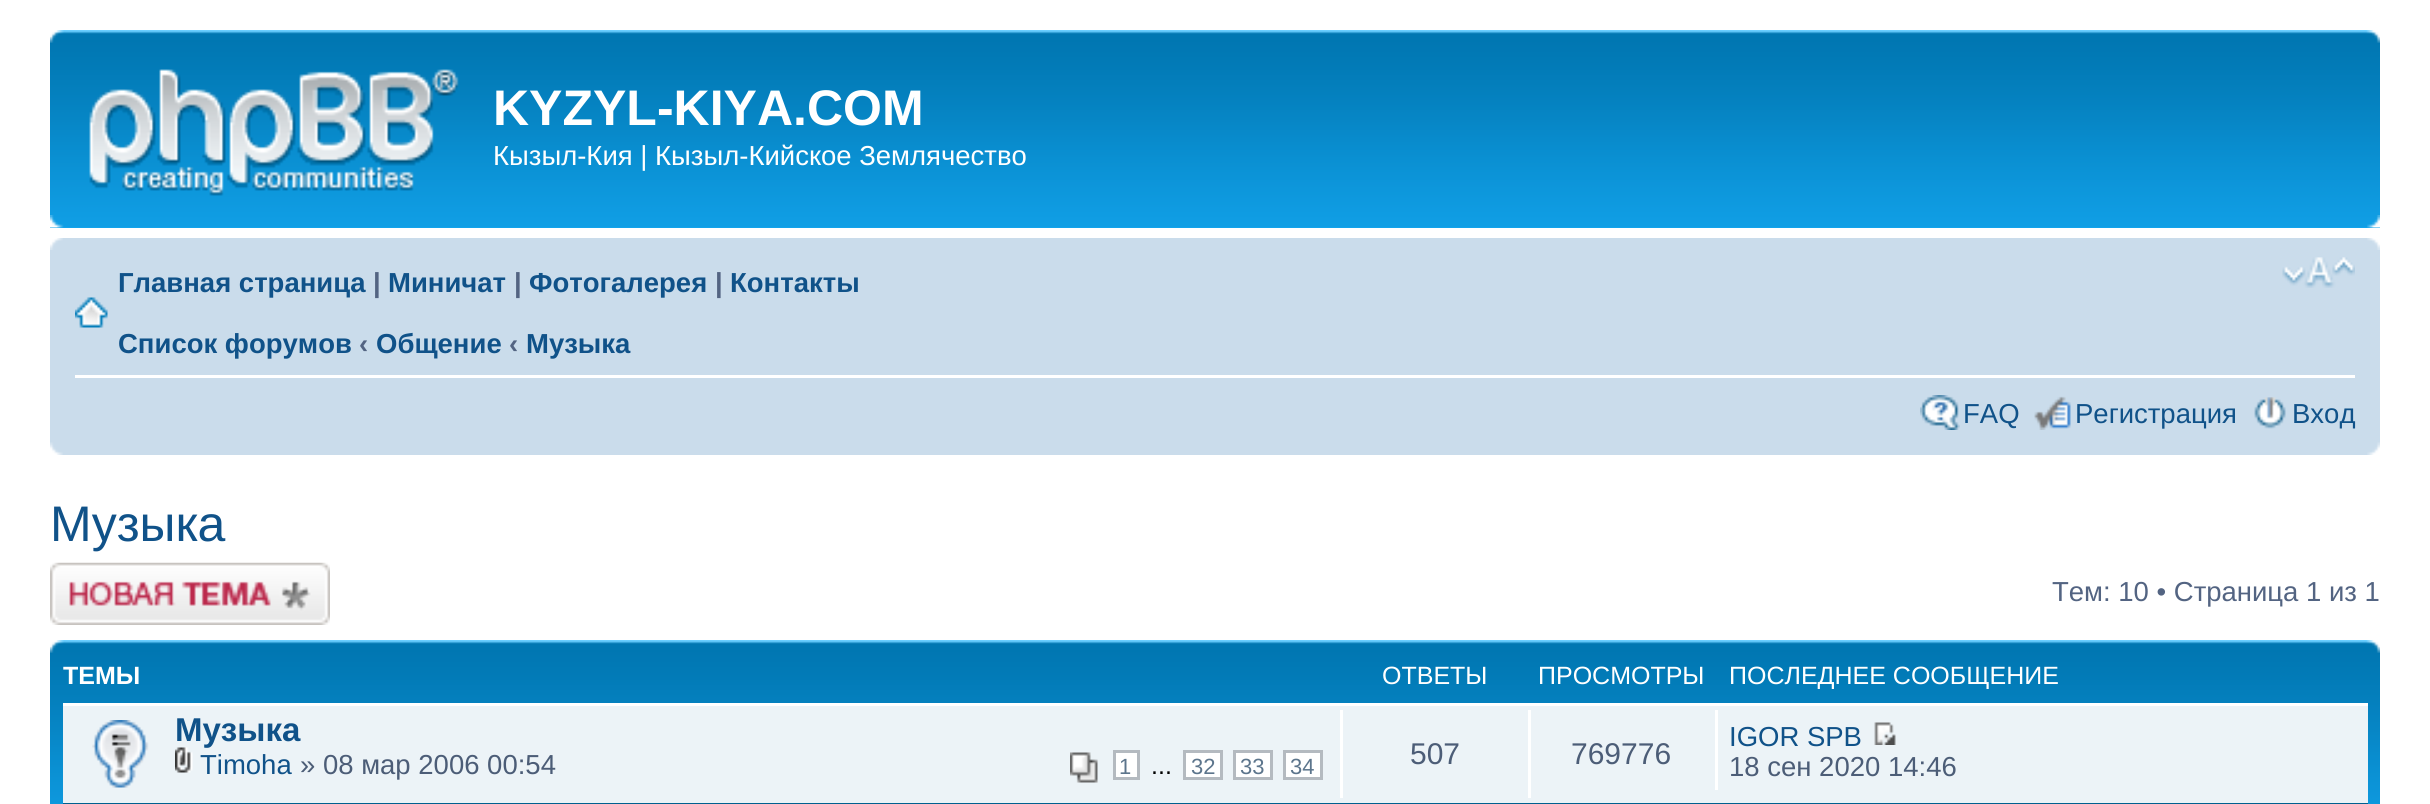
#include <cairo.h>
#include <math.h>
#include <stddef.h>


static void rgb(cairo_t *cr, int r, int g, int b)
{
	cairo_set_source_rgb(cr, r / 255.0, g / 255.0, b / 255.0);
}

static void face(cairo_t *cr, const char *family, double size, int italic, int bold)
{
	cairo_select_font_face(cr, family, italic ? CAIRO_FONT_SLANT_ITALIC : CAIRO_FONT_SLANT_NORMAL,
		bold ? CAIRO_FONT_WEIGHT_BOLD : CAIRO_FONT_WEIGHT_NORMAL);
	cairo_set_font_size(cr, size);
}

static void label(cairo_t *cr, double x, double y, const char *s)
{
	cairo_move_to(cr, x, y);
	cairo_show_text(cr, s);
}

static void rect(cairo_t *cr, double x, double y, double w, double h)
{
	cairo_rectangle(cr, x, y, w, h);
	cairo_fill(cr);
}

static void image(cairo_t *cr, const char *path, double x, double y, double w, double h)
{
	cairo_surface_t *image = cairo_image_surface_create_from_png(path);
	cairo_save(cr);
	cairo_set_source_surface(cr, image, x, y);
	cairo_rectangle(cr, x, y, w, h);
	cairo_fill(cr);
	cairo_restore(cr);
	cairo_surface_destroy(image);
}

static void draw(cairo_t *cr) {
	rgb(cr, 255, 255, 255);
	cairo_paint(cr);
	rgb(cr, 18, 163, 235);
	rect(cr, 50, 227, 2330, 1);
	image(cr, "image0.png", 50, 30, 2330, 197);
	image(cr, "image1.png", 50, 30, 14, 13);
	image(cr, "image2.png", 2366, 30, 14, 13);
	image(cr, "image3.png", 89, 69, 370, 127);
	face(cr, "Liberation Sans", 50, 0, 1);
	rgb(cr, 255, 255, 255);
	label(cr, 493, 125, "KYZYL-KIYA.COM");
	face(cr, "Liberation Sans", 27.5, 0, 0);
	label(cr, 493, 165, "Кызыл-Кия | Кызыл-Кийское Землячество");
	image(cr, "image4.png", 50, 215, 14, 13);
	image(cr, "image5.png", 2367, 215, 13, 13);
	rgb(cr, 202, 220, 235);
	rect(cr, 50, 238, 2330, 217);
	image(cr, "image6.png", 50, 238, 13, 12);
	image(cr, "image7.png", 2367, 238, 13, 12);
	rgb(cr, 255, 255, 255);
	rect(cr, 75, 375, 2280, 3);
	image(cr, "image8.png", 75, 297, 33, 31);
	face(cr, "Liberation Sans", 27.5, 0, 1);
	rgb(cr, 16, 82, 137);
	label(cr, 118, 292, "Главная страница");
	rgb(cr, 83, 100, 130);
	label(cr, 373, 292, "|");
	rgb(cr, 16, 82, 137);
	label(cr, 388, 292, "Миничат");
	rgb(cr, 83, 100, 130);
	label(cr, 514, 292, "|");
	rgb(cr, 16, 82, 137);
	label(cr, 529, 292, "Фотогалерея");
	rgb(cr, 83, 100, 130);
	label(cr, 715, 292, "|");
	rgb(cr, 16, 82, 137);
	label(cr, 730, 292, "Контакты");
	label(cr, 118, 353, "Список форумов");
	rgb(cr, 83, 100, 130);
	label(cr, 359, 353, "‹");
	rgb(cr, 16, 82, 137);
	label(cr, 376, 353, "Общение");
	rgb(cr, 83, 100, 130);
	label(cr, 509, 353, "‹");
	rgb(cr, 16, 82, 137);
	label(cr, 526, 353, "Музыка");
	image(cr, "image9.png", 2282, 257, 73, 31);
	image(cr, "image10.png", 1920, 395, 40, 35);
	face(cr, "Liberation Sans", 27.5, 0, 0);
	label(cr, 1963, 423, "FAQ");
	image(cr, "image11.png", 2034, 396, 37, 34);
	label(cr, 2075, 423, "Регистрация");
	image(cr, "image12.png", 2254, 397, 32, 32);
	label(cr, 2292, 423, "Вход");
	image(cr, "image13.png", 50, 442, 13, 13);
	image(cr, "image14.png", 2367, 442, 13, 13);
	face(cr, "Liberation Sans", 50, 0, 0);
	label(cr, 50, 541, "Музыка");
	image(cr, "image15.png", 50, 562, 280, 63);
	face(cr, "Liberation Sans", 27.5, 0, 0);
	rgb(cr, 83, 100, 130);
	label(cr, 2052, 601, "Тем: 10 • Страница 1 из 1");
	image(cr, "image16.png", 50, 640, 2330, 164);
	image(cr, "image17.png", 50, 640, 14, 13);
	image(cr, "image18.png", 2366, 640, 14, 13);
	cairo_save(cr);
	cairo_rectangle(cr, 63, 653, 2305, 50);
	cairo_clip(cr);
	face(cr, "Liberation Sans", 25, 0, 1);
	rgb(cr, 255, 255, 255);
	label(cr, 63, 684, "ТЕМЫ");
	cairo_restore(cr);
	face(cr, "Liberation Sans", 25, 0, 0);
	rgb(cr, 255, 255, 255);
	label(cr, 1382, 684, "ОТВЕТЫ");
	label(cr, 1538, 684, "ПРОСМОТРЫ");
	label(cr, 1729, 684, "ПОСЛЕДНЕЕ СООБЩЕНИЕ");
	rgb(cr, 236, 243, 247);
	rect(cr, 63, 706, 2305, 97);
	rgb(cr, 255, 255, 255);
	rect(cr, 63, 703, 2305, 3);
	rgb(cr, 0, 96, 143);
	rect(cr, 63, 803, 2305, 1);
	image(cr, "image19.png", 92, 720, 57, 68);
	face(cr, "Liberation Sans", 33, 0, 1);
	rgb(cr, 16, 82, 137);
	label(cr, 175, 741, "Музыка");
	image(cr, "image20.png", 175, 747, 18, 26);
	face(cr, "Liberation Sans", 27.5, 0, 0);
	label(cr, 200, 774, "Timoha");
	rgb(cr, 76, 93, 119);
	label(cr, 300, 774, "» 08 мар 2006 00:54");
	image(cr, "image21.png", 1070, 752, 28, 31);
	rgb(cr, 255, 255, 255);
	cairo_rectangle(cr, 1114.5, 751.5, 24, 27);
	cairo_fill_preserve(cr);
	rgb(cr, 180, 186, 192);
	cairo_set_line_width(cr, 3);
	cairo_stroke(cr);
	face(cr, "Liberation Sans", 22, 0, 0);
	rgb(cr, 92, 117, 140);
	label(cr, 1119, 774, "1");
	face(cr, "Liberation Sans", 25, 0, 0);
	rgb(cr, 0, 0, 0);
	label(cr, 1151, 774, "...");
	rgb(cr, 255, 255, 255);
	cairo_rectangle(cr, 1184.5, 751.5, 37, 27);
	cairo_fill_preserve(cr);
	rgb(cr, 180, 186, 192);
	cairo_stroke(cr);
	face(cr, "Liberation Sans", 22, 0, 0);
	rgb(cr, 92, 117, 140);
	label(cr, 1191, 774, "32");
	rgb(cr, 255, 255, 255);
	cairo_rectangle(cr, 1234.5, 751.5, 37, 27);
	cairo_fill_preserve(cr);
	rgb(cr, 180, 186, 192);
	cairo_stroke(cr);
	rgb(cr, 92, 117, 140);
	label(cr, 1240, 774, "33");
	rgb(cr, 255, 255, 255);
	cairo_rectangle(cr, 1284.5, 751.5, 37, 27);
	cairo_fill_preserve(cr);
	rgb(cr, 180, 186, 192);
	cairo_stroke(cr);
	rgb(cr, 92, 117, 140);
	label(cr, 1290, 774, "34");
	rgb(cr, 255, 255, 255);
	rect(cr, 1340, 710, 3, 88);
	face(cr, "Liberation Sans", 30, 0, 0);
	rgb(cr, 76, 93, 119);
	label(cr, 1410, 764, "507");
	rgb(cr, 255, 255, 255);
	rect(cr, 1528, 710, 3, 88);
	rgb(cr, 76, 93, 119);
	label(cr, 1571, 764, "769776");
	rgb(cr, 255, 255, 255);
	rect(cr, 1715, 710, 3, 80);
	face(cr, "Liberation Sans", 27.5, 0, 0);
	rgb(cr, 16, 82, 137);
	label(cr, 1729, 746, "IGOR SPB");
	image(cr, "image22.png", 1874, 722, 22, 23);
	rgb(cr, 76, 93, 119);
	label(cr, 1729, 776, "18 сен 2020 14:46");
}

int main(void) {
	cairo_surface_t *surface = cairo_image_surface_create(CAIRO_FORMAT_RGB24, 2430, 804);
	cairo_t *cr = cairo_create(surface);
	cairo_font_options_t *options = cairo_font_options_create();
	cairo_font_options_set_hint_metrics(options, CAIRO_HINT_METRICS_OFF);
	cairo_font_options_set_hint_style(options, CAIRO_HINT_STYLE_NONE);
	cairo_set_font_options(cr, options);
	cairo_set_miter_limit(cr, 4);
	draw(cr);
	cairo_surface_write_to_png(surface, "render.png");
	cairo_font_options_destroy(options);
	cairo_destroy(cr);
	cairo_surface_destroy(surface);
	return 0;
}
